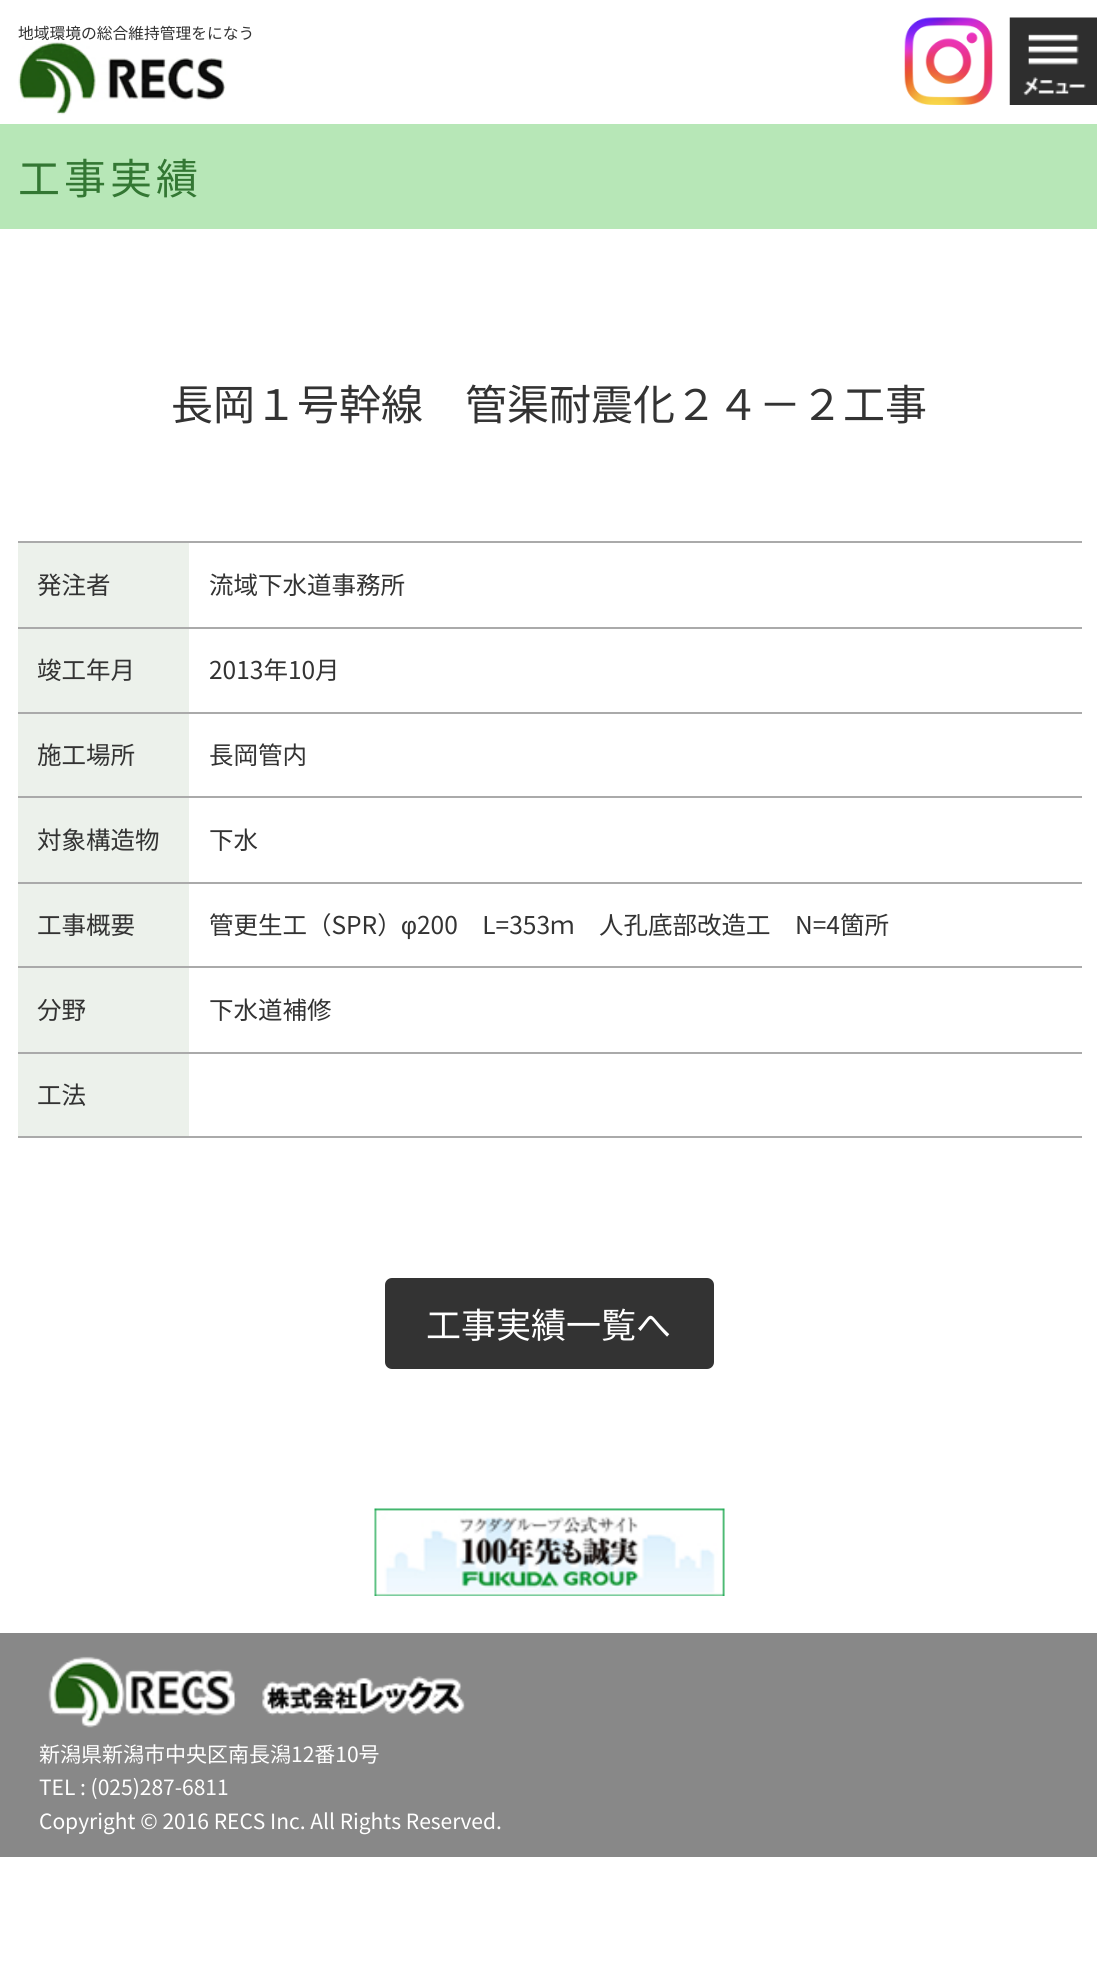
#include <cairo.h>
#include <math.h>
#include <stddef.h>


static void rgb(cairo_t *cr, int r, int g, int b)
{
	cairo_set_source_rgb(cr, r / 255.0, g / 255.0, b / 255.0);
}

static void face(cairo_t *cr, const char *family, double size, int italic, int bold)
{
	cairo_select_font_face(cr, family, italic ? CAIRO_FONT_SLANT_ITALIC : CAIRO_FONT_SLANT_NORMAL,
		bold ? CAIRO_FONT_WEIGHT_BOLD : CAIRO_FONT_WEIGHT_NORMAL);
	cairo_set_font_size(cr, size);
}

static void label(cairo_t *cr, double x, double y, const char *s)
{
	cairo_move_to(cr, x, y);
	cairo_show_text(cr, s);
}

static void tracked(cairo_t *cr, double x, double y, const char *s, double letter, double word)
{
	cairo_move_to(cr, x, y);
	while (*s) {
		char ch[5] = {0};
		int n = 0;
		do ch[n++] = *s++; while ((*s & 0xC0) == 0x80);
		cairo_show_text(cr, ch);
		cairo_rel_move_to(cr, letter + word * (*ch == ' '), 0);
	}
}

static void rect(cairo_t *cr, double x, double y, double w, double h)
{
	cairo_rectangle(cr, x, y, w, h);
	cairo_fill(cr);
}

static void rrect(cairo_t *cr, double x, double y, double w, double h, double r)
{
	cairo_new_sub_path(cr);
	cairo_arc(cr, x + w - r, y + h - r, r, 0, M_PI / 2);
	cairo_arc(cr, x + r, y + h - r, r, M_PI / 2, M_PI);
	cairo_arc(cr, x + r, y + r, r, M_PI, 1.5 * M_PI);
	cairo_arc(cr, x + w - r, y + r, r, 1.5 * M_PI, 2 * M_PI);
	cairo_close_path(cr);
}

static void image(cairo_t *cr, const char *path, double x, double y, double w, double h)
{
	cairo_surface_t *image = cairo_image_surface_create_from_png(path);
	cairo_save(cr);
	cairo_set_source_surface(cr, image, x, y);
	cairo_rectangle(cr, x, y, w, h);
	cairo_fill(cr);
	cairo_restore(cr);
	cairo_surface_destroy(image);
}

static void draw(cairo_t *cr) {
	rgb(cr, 255, 255, 255);
	cairo_paint(cr);
	face(cr, "Noto Sans JP", 15.75, 0, 0);
	rgb(cr, 51, 51, 51);
	label(cr, 18, 39, "地域環境の総合維持管理をになう");
	image(cr, "image0.png", 18, 40, 208, 75);
	image(cr, "image1.png", 904, 17, 89, 88);
	image(cr, "image2.png", 1009, 17, 88, 88);
	rgb(cr, 183, 231, 183);
	rect(cr, 0, 124, 1097, 105);
	face(cr, "Noto Sans JP", 42, 0, 0);
	rgb(cr, 51, 119, 51);
	tracked(cr, 18, 194, "工事実績", 4, 0);
	rgb(cr, 51, 51, 51);
	label(cr, 171, 420, "長岡１号幹線　管渠耐震化２４－２工事");
	rgb(cr, 170, 170, 170);
	rect(cr, 18, 541, 1064, 2);
	rect(cr, 18, 627, 1064, 2);
	rgb(cr, 236, 241, 235);
	rect(cr, 18, 543, 171, 84);
	face(cr, "Noto Sans JP", 24.5, 0, 0);
	rgb(cr, 51, 51, 51);
	label(cr, 37, 594, "発注者");
	label(cr, 209, 594, "流域下水道事務所");
	rgb(cr, 170, 170, 170);
	rect(cr, 18, 712, 1064, 2);
	rgb(cr, 236, 241, 235);
	rect(cr, 18, 629, 171, 83);
	rgb(cr, 51, 51, 51);
	label(cr, 37, 679, "竣工年月");
	label(cr, 209, 679, "2013年10月");
	rgb(cr, 170, 170, 170);
	rect(cr, 18, 796, 1064, 2);
	rgb(cr, 236, 241, 235);
	rect(cr, 18, 714, 171, 82);
	rgb(cr, 51, 51, 51);
	label(cr, 37, 764, "施工場所");
	label(cr, 209, 764, "長岡管内");
	rgb(cr, 170, 170, 170);
	rect(cr, 18, 882, 1064, 2);
	rgb(cr, 236, 241, 235);
	rect(cr, 18, 798, 171, 84);
	rgb(cr, 51, 51, 51);
	label(cr, 37, 849, "対象構造物");
	label(cr, 209, 849, "下水");
	rgb(cr, 170, 170, 170);
	rect(cr, 18, 966, 1064, 2);
	rgb(cr, 236, 241, 235);
	rect(cr, 18, 884, 171, 82);
	rgb(cr, 51, 51, 51);
	label(cr, 37, 934, "工事概要");
	label(cr, 209, 934, "管更生工（SPR）");
	face(cr, "Liberation Sans", 24.5, 0, 0);
	label(cr, 401, 934, "φ");
	face(cr, "Noto Sans JP", 24.5, 0, 0);
	label(cr, 417, 934, "200　L=353ｍ　人孔底部改造工　N=4箇所");
	rgb(cr, 170, 170, 170);
	rect(cr, 18, 1052, 1064, 2);
	rgb(cr, 236, 241, 235);
	rect(cr, 18, 968, 171, 84);
	rgb(cr, 51, 51, 51);
	label(cr, 37, 1019, "分野");
	label(cr, 209, 1019, "下水道補修");
	rgb(cr, 170, 170, 170);
	rect(cr, 18, 1136, 1064, 2);
	rgb(cr, 236, 241, 235);
	rect(cr, 18, 1054, 171, 82);
	rgb(cr, 51, 51, 51);
	label(cr, 37, 1104, "工法");
	rrect(cr, 385, 1278, 329, 91, 7);
	cairo_fill(cr);
	face(cr, "Noto Sans JP", 35, 0, 0);
	rgb(cr, 255, 255, 255);
	label(cr, 426, 1338, "工事実績一覧へ");
	image(cr, "image3.png", 374, 1508, 351, 88);
	rgb(cr, 136, 136, 136);
	rect(cr, 0, 1633, 1097, 224);
	image(cr, "image4.png", 48, 1656, 417, 72);
	face(cr, "Noto Sans JP", 21, 0, 0);
	rgb(cr, 255, 255, 255);
	label(cr, 39, 1762, "新潟県新潟市中央区南長潟12番10号");
	label(cr, 39, 1795, "TEL : (025)287-6811");
	label(cr, 39, 1829, "Copyright © 2016 RECS Inc. All Rights Reserved.");
}

int main(void) {
	cairo_surface_t *surface = cairo_image_surface_create(CAIRO_FORMAT_RGB24, 1097, 1971);
	cairo_t *cr = cairo_create(surface);
	cairo_font_options_t *options = cairo_font_options_create();
	cairo_font_options_set_hint_metrics(options, CAIRO_HINT_METRICS_OFF);
	cairo_font_options_set_hint_style(options, CAIRO_HINT_STYLE_NONE);
	cairo_set_font_options(cr, options);
	cairo_set_miter_limit(cr, 4);
	draw(cr);
	cairo_surface_write_to_png(surface, "render.png");
	cairo_font_options_destroy(options);
	cairo_destroy(cr);
	cairo_surface_destroy(surface);
	return 0;
}
